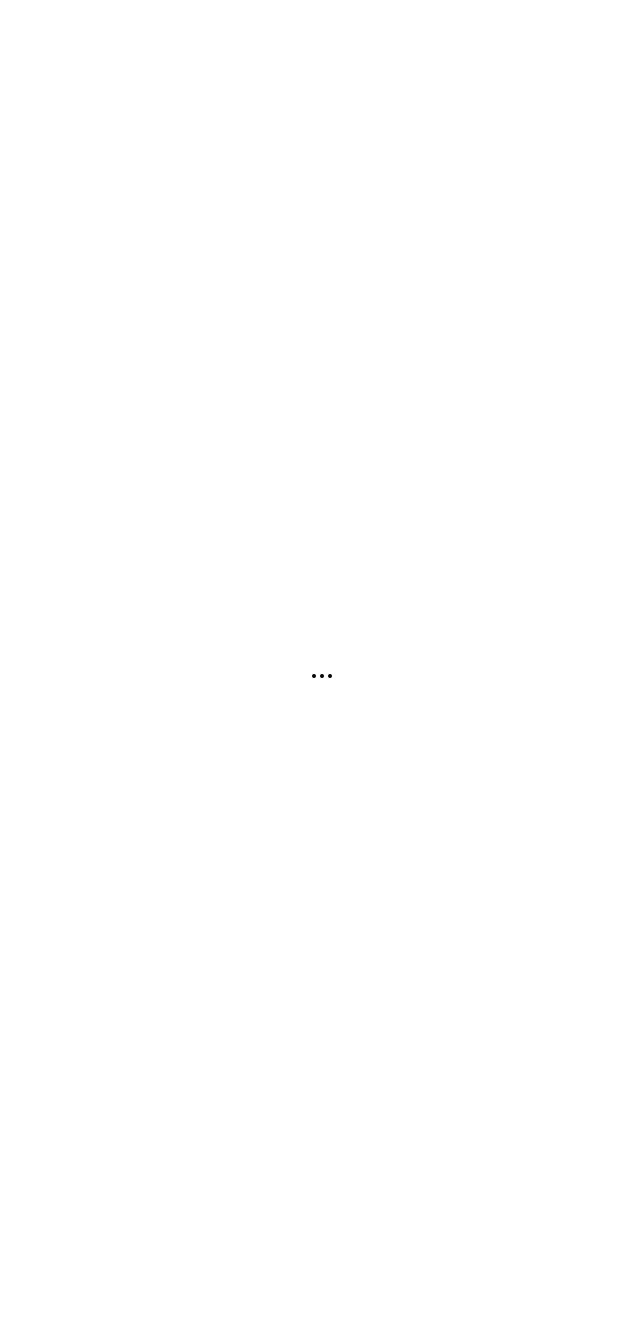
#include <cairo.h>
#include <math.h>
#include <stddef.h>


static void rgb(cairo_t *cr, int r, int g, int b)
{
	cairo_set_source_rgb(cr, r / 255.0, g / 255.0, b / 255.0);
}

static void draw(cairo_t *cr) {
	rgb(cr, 255, 255, 255);
	cairo_paint(cr);
	rgb(cr, 10, 10, 10);
	cairo_arc(cr, 314, 676, 2, 0, 2 * M_PI);
	cairo_fill(cr);
	cairo_arc(cr, 322, 676, 2, 0, 2 * M_PI);
	cairo_fill(cr);
	cairo_arc(cr, 330, 676, 2, 0, 2 * M_PI);
	cairo_fill(cr);
}

int main(void) {
	cairo_surface_t *surface = cairo_image_surface_create(CAIRO_FORMAT_RGB24, 636, 1334);
	cairo_t *cr = cairo_create(surface);
	cairo_font_options_t *options = cairo_font_options_create();
	cairo_font_options_set_hint_metrics(options, CAIRO_HINT_METRICS_OFF);
	cairo_font_options_set_hint_style(options, CAIRO_HINT_STYLE_NONE);
	cairo_set_font_options(cr, options);
	cairo_set_miter_limit(cr, 4);
	draw(cr);
	cairo_surface_write_to_png(surface, "render.png");
	cairo_font_options_destroy(options);
	cairo_destroy(cr);
	cairo_surface_destroy(surface);
	return 0;
}
